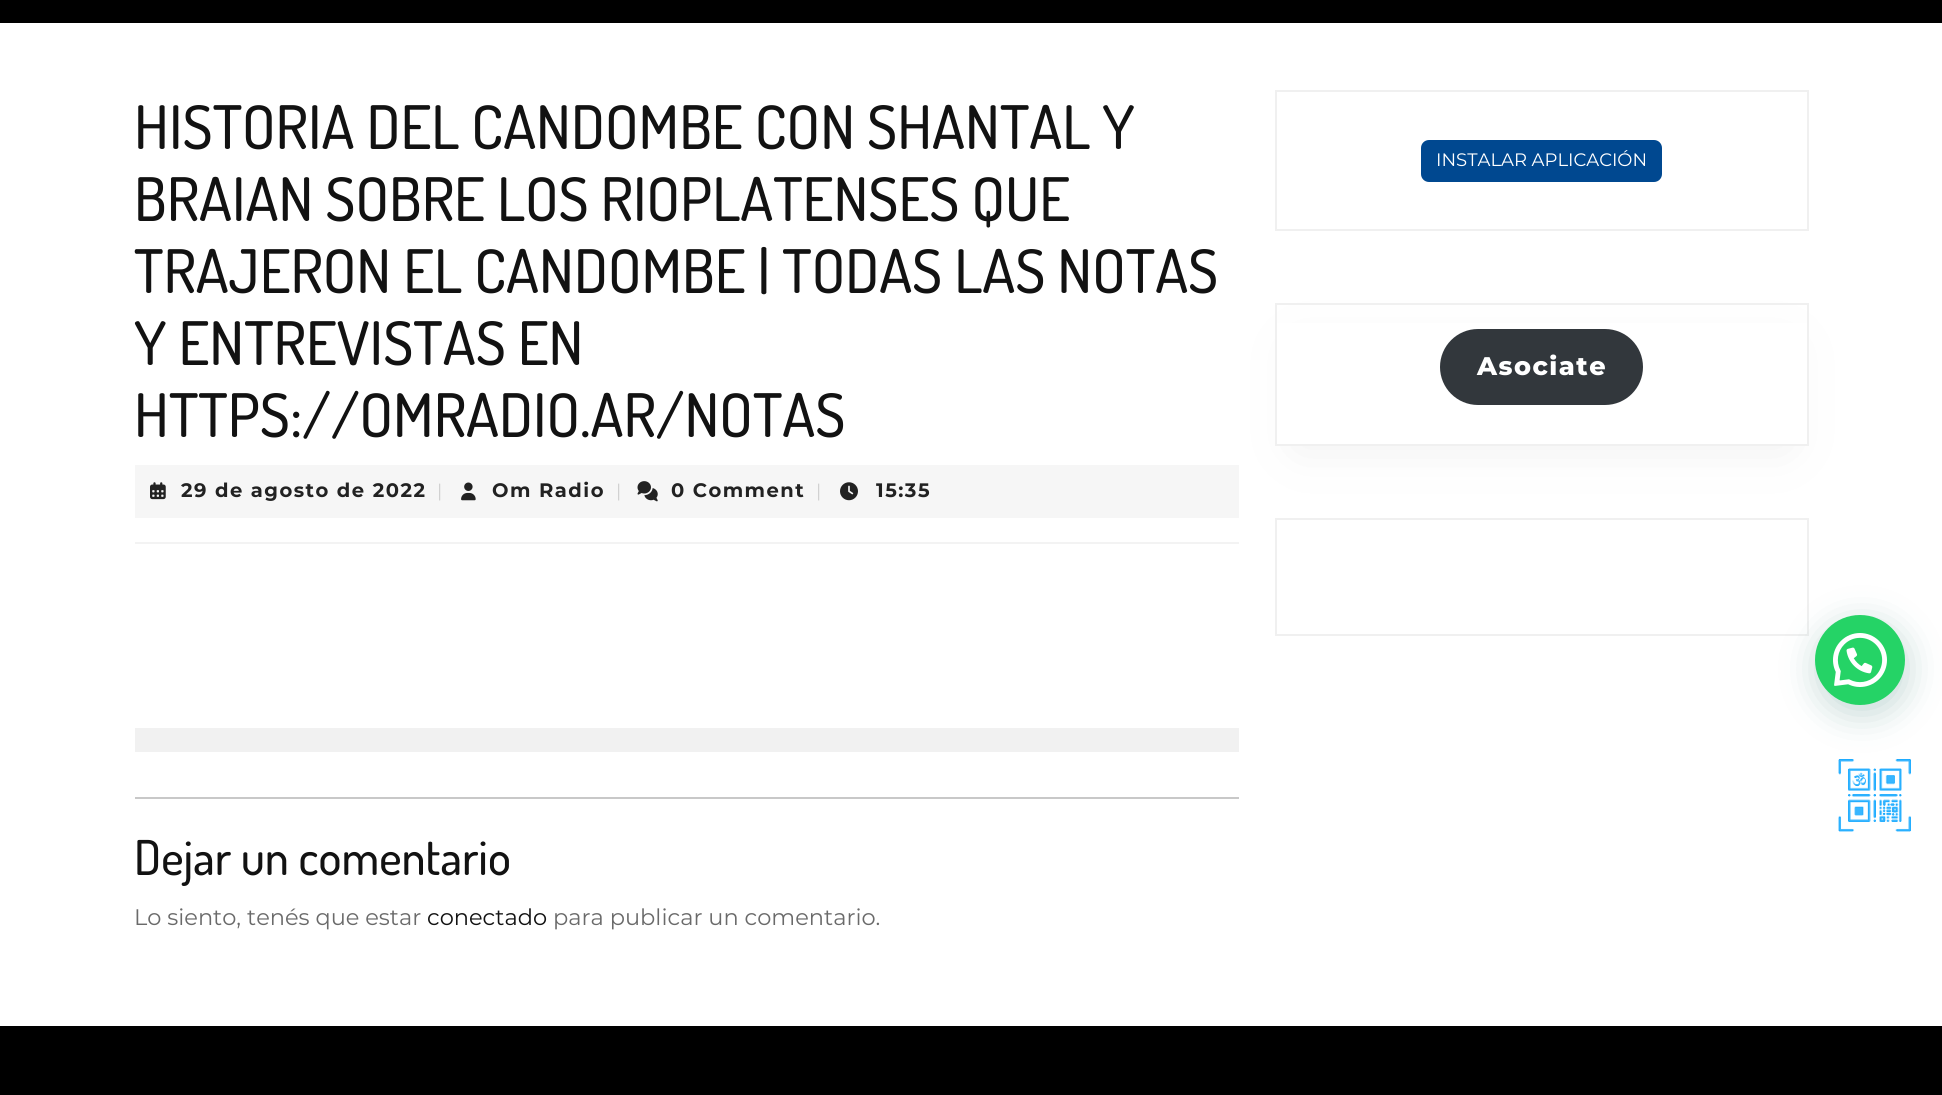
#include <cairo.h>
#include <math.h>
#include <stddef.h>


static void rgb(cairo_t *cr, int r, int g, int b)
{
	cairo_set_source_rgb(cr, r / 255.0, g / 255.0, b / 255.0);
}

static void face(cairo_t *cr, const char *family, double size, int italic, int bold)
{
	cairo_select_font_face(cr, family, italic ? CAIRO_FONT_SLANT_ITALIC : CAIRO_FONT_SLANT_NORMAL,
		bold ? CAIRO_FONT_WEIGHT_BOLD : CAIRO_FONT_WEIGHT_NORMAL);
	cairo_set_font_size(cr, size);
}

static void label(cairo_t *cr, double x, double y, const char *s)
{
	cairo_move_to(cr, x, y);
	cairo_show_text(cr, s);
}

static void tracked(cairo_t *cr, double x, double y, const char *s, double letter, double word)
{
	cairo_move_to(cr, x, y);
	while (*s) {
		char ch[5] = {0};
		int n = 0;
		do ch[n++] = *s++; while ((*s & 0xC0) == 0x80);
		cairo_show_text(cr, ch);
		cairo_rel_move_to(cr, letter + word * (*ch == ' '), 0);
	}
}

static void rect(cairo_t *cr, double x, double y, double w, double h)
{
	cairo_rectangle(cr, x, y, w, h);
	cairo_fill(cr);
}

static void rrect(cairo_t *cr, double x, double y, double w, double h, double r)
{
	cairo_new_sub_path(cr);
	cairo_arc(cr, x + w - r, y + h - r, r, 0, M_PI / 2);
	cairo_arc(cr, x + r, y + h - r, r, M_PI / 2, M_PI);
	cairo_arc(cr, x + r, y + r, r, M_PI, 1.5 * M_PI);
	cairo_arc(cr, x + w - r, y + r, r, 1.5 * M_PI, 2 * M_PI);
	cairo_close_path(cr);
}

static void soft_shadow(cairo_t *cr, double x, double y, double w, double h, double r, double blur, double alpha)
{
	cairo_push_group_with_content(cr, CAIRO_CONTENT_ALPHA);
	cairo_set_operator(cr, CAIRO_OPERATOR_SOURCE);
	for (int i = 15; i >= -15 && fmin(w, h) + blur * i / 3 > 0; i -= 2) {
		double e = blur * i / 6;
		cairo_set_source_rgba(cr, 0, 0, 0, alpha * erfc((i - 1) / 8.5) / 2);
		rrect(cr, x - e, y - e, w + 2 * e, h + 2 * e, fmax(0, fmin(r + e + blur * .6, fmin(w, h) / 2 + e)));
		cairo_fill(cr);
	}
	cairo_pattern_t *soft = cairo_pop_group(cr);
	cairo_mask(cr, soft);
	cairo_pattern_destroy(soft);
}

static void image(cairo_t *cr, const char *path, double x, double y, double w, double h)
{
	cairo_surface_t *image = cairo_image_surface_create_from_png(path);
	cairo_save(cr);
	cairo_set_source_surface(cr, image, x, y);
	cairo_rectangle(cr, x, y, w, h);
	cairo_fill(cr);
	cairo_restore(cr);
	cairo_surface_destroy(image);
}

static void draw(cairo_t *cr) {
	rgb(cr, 255, 255, 255);
	cairo_paint(cr);
	rgb(cr, 0, 0, 0);
	rect(cr, 0, 0, 1942, 23);
	face(cr, "Dosis Medium", 60, 0, 0);
	rgb(cr, 18, 18, 18);
	label(cr, 134, 149, "HISTORIA DEL CANDOMBE CON SHANTAL Y");
	label(cr, 134, 221, "BRAIAN SOBRE LOS RIOPLATENSES QUE");
	label(cr, 134, 293, "TRAJERON EL CANDOMBE | TODAS LAS NOTAS");
	label(cr, 134, 365, "Y ENTREVISTAS EN");
	label(cr, 134, 437, "HTTPS://OMRADIO.AR/NOTAS");
	rgb(cr, 246, 246, 246);
	rect(cr, 135, 465, 1104, 53);
	image(cr, "image0.png", 150, 482, 16, 18);
	face(cr, "Montserrat", 19.5, 0, 1);
	rgb(cr, 34, 34, 34);
	tracked(cr, 181, 497, "29 de agosto de 2022", 1.5, 0);
	face(cr, "Montserrat", 18, 0, 0);
	rgb(cr, 207, 207, 207);
	label(cr, 437, 497, "|");
	image(cr, "image1.png", 461, 482, 15, 19);
	face(cr, "Montserrat", 19.5, 0, 1);
	rgb(cr, 34, 34, 34);
	tracked(cr, 492, 497, "Om Radio", 1.5, 0);
	face(cr, "Montserrat", 18, 0, 0);
	rgb(cr, 207, 207, 207);
	label(cr, 616, 497, "|");
	image(cr, "image2.png", 637, 481, 21, 21);
	face(cr, "Montserrat", 19.5, 0, 1);
	rgb(cr, 34, 34, 34);
	tracked(cr, 671, 497, "0 Comment", 1.5, 0);
	face(cr, "Montserrat", 18, 0, 0);
	rgb(cr, 207, 207, 207);
	label(cr, 816, 497, "|");
	image(cr, "image3.png", 840, 482, 18, 19);
	face(cr, "Montserrat", 19.5, 0, 1);
	rgb(cr, 34, 34, 34);
	tracked(cr, 876, 497, "15:35", 1.5, 0);
	rgb(cr, 243, 243, 243);
	rect(cr, 135, 542, 1104, 2);
	rgb(cr, 241, 241, 241);
	rect(cr, 135, 728, 1104, 24);
	rgb(cr, 200, 200, 200);
	rect(cr, 135, 797, 1104, 2);
	face(cr, "Dosis Medium", 48, 0, 0);
	rgb(cr, 18, 18, 18);
	label(cr, 134, 875, "Dejar un comentario");
	face(cr, "Montserrat", 22.5, 0, 0);
	rgb(cr, 106, 106, 106);
	label(cr, 134, 925, "Lo siento, tenés que estar");
	rgb(cr, 18, 18, 18);
	label(cr, 427, 925, "conectado");
	rgb(cr, 106, 106, 106);
	label(cr, 553, 925, "para publicar un comentario.");
	cairo_rectangle(cr, 1276, 91, 532, 139);
	rgb(cr, 240, 240, 240);
	cairo_stroke(cr);
	rgb(cr, 0, 72, 144);
	rrect(cr, 1421, 140, 241, 42, 8);
	cairo_fill(cr);
	face(cr, "Montserrat", 18, 0, 0);
	rgb(cr, 255, 255, 255);
	label(cr, 1436, 166, "INSTALAR APLICACIÓN");
	rgb(cr, 240, 240, 240);
	soft_shadow(cr, 1298, 348, 489, 98, 0, 26, 1);
	rgb(cr, 255, 255, 255);
	rect(cr, 1277, 323, 530, 121);
	cairo_rectangle(cr, 1276, 304, 532, 141);
	rgb(cr, 240, 240, 240);
	cairo_stroke(cr);
	rgb(cr, 50, 55, 60);
	rrect(cr, 1440, 329, 203, 76, 38);
	cairo_fill(cr);
	face(cr, "Montserrat ExtraBold", 25.5, 0, 0);
	rgb(cr, 255, 255, 255);
	tracked(cr, 1477, 375, "Asociate", 1.5, 0);
	cairo_rectangle(cr, 1276, 519, 532, 116);
	rgb(cr, 240, 240, 240);
	cairo_stroke(cr);
	image(cr, "image4.png", 1838, 759, 73, 73);
	rgb(cr, 7, 94, 84);
	soft_shadow(cr, 1817, 624, 90, 90, 45, 18, 0.24);
	rgb(cr, 37, 211, 102);
	cairo_arc(cr, 1860, 660, 45, 0, 2 * M_PI);
	cairo_fill(cr);
	image(cr, "image5.png", 1833, 633, 54, 54);
	rgb(cr, 0, 0, 0);
	rect(cr, 0, 1026, 1942, 69);
}

int main(void) {
	cairo_surface_t *surface = cairo_image_surface_create(CAIRO_FORMAT_RGB24, 1942, 1095);
	cairo_t *cr = cairo_create(surface);
	cairo_font_options_t *options = cairo_font_options_create();
	cairo_font_options_set_hint_metrics(options, CAIRO_HINT_METRICS_OFF);
	cairo_font_options_set_hint_style(options, CAIRO_HINT_STYLE_NONE);
	cairo_set_font_options(cr, options);
	cairo_set_miter_limit(cr, 4);
	draw(cr);
	cairo_surface_write_to_png(surface, "render.png");
	cairo_font_options_destroy(options);
	cairo_destroy(cr);
	cairo_surface_destroy(surface);
	return 0;
}
